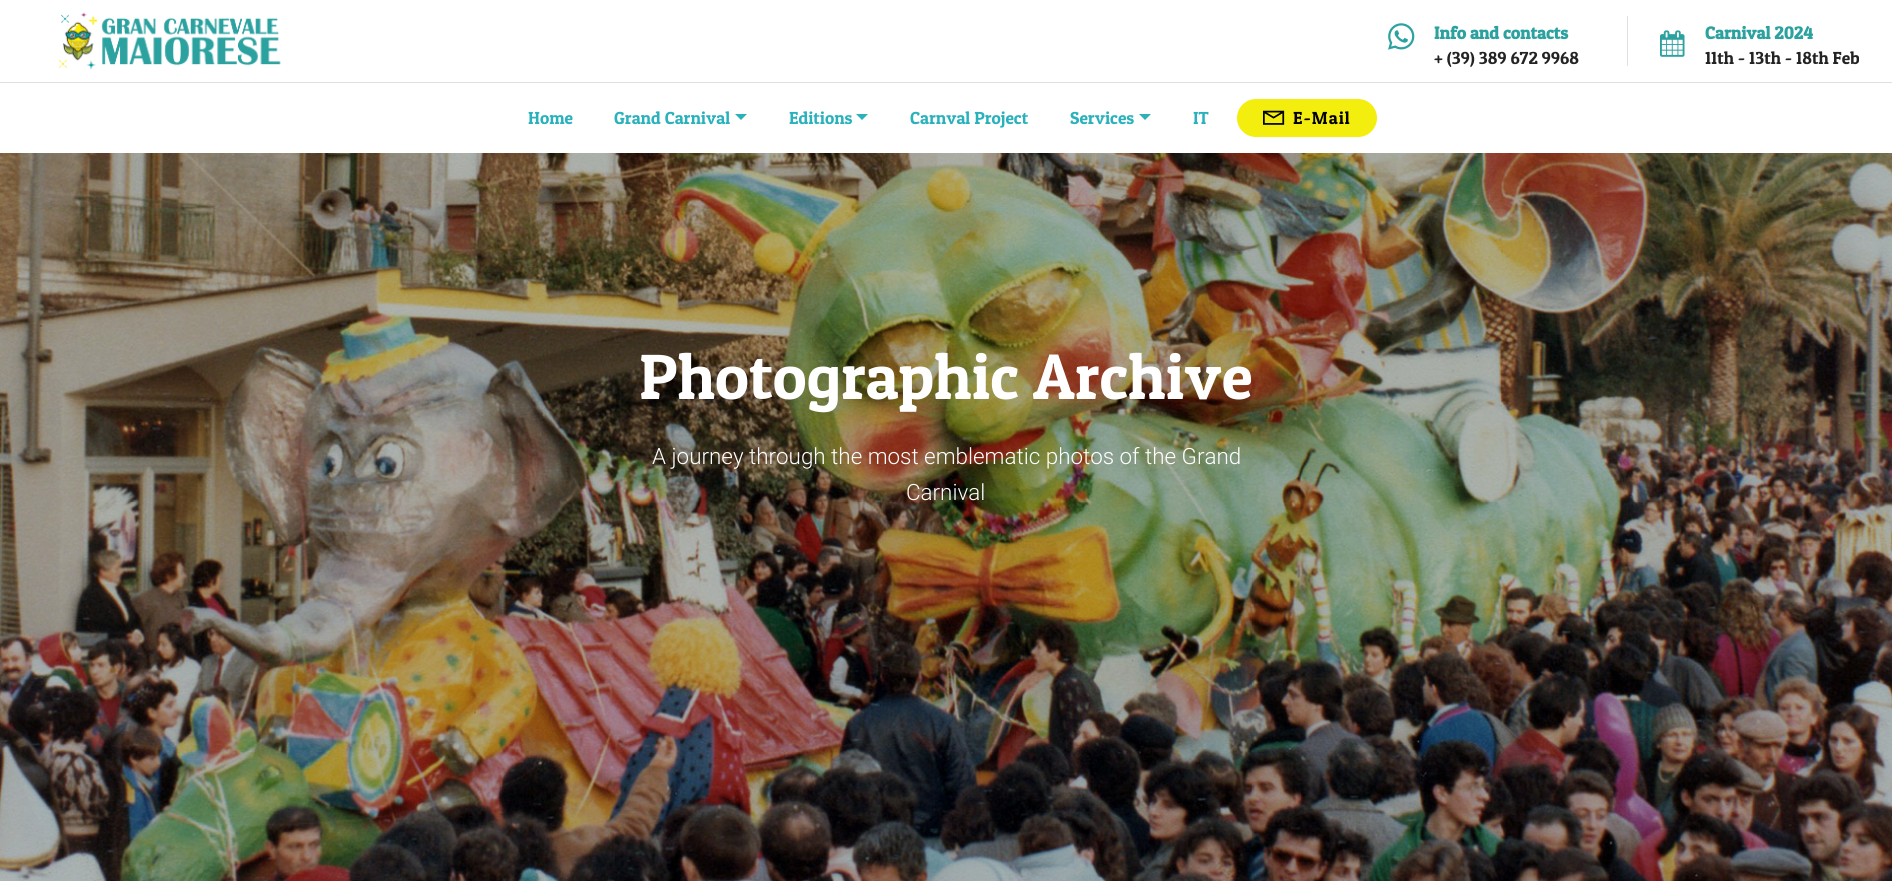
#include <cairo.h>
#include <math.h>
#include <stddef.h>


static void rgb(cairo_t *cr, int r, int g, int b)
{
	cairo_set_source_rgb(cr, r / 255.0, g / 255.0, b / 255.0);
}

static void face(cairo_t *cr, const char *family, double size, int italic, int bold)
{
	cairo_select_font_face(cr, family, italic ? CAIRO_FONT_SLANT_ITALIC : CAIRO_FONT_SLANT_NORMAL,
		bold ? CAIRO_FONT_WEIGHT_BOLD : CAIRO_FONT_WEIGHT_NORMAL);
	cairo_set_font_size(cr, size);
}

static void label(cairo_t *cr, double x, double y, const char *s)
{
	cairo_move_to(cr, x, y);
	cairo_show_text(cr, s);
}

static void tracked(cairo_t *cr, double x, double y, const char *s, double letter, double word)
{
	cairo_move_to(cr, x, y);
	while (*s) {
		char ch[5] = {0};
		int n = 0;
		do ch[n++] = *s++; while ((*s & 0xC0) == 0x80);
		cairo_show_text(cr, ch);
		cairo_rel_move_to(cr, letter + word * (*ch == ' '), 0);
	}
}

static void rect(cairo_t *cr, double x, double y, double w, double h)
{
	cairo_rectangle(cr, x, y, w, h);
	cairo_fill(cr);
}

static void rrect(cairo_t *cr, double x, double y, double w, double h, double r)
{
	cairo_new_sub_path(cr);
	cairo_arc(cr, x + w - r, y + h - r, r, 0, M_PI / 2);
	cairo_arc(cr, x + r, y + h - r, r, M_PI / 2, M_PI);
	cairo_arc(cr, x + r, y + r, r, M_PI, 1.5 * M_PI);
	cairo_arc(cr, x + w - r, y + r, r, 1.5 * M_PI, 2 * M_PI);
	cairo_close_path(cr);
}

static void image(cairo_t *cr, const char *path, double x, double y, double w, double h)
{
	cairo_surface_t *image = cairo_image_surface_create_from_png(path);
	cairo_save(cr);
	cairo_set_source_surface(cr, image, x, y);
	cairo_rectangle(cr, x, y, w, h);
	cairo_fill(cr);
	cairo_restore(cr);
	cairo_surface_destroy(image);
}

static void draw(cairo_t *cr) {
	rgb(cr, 255, 255, 255);
	cairo_paint(cr);
	rgb(cr, 224, 224, 224);
	rect(cr, 0, 82, 1892, 1);
	image(cr, "image0.png", 59, 12, 222, 58);
	image(cr, "image1.png", 1388, 23, 27, 27);
	face(cr, "Patua One", 17.5, 0, 1);
	rgb(cr, 44, 162, 160);
	label(cr, 1434, 39, "Info and contacts");
	face(cr, "Patua One", 17.5, 0, 0);
	rgb(cr, 35, 35, 35);
	label(cr, 1434, 64, "+ (39) 389 672 9968");
	rgb(cr, 224, 224, 224);
	rect(cr, 1627, 16, 1, 50);
	image(cr, "image2.png", 1660, 30, 25, 27);
	face(cr, "Patua One", 17.5, 0, 1);
	rgb(cr, 44, 162, 160);
	label(cr, 1705, 39, "Carnival 2024");
	face(cr, "Patua One", 17.5, 0, 0);
	rgb(cr, 35, 35, 35);
	label(cr, 1705, 64, "11th - 13th - 18th Feb");
	rgb(cr, 41, 177, 188);
	label(cr, 528, 124, "Home");
	label(cr, 614, 124, "Grand Carnival");
	cairo_new_path(cr);
	cairo_move_to(cr, 735, 114);
	cairo_line_to(cr, 747, 114);
	cairo_line_to(cr, 741, 120);
	cairo_close_path(cr);
	cairo_fill(cr);
	label(cr, 789, 124, "Editions");
	cairo_new_path(cr);
	cairo_move_to(cr, 856, 114);
	cairo_line_to(cr, 868, 114);
	cairo_line_to(cr, 862, 120);
	cairo_close_path(cr);
	cairo_fill(cr);
	label(cr, 910, 124, "Carnval Project");
	label(cr, 1070, 124, "Services");
	cairo_new_path(cr);
	cairo_move_to(cr, 1139, 114);
	cairo_line_to(cr, 1151, 114);
	cairo_line_to(cr, 1145, 120);
	cairo_close_path(cr);
	cairo_fill(cr);
	label(cr, 1193, 124, "IT");
	rgb(cr, 244, 238, 14);
	rrect(cr, 1238, 100, 138, 36, 18);
	cairo_fill_preserve(cr);
	cairo_stroke(cr);
	image(cr, "image3.png", 1263, 110, 22, 15);
	rgb(cr, 3, 3, 0);
	tracked(cr, 1293, 124, "E-Mail", 1, 0);
	image(cr, "image4.png", 0, 153, 1892, 728);
	face(cr, "Patua One", 64, 0, 0);
	rgb(cr, 255, 255, 255);
	label(cr, 639, 399, "Photographic Archive");
	face(cr, "Roboto Light", 22.4, 0, 0);
	label(cr, 652, 464, "A journey through the most emblematic photos of the Grand");
	label(cr, 906, 500, "Carnival");
}

int main(void) {
	cairo_surface_t *surface = cairo_image_surface_create(CAIRO_FORMAT_RGB24, 1892, 881);
	cairo_t *cr = cairo_create(surface);
	cairo_font_options_t *options = cairo_font_options_create();
	cairo_font_options_set_hint_metrics(options, CAIRO_HINT_METRICS_OFF);
	cairo_font_options_set_hint_style(options, CAIRO_HINT_STYLE_NONE);
	cairo_set_font_options(cr, options);
	cairo_set_miter_limit(cr, 4);
	draw(cr);
	cairo_surface_write_to_png(surface, "render.png");
	cairo_font_options_destroy(options);
	cairo_destroy(cr);
	cairo_surface_destroy(surface);
	return 0;
}
